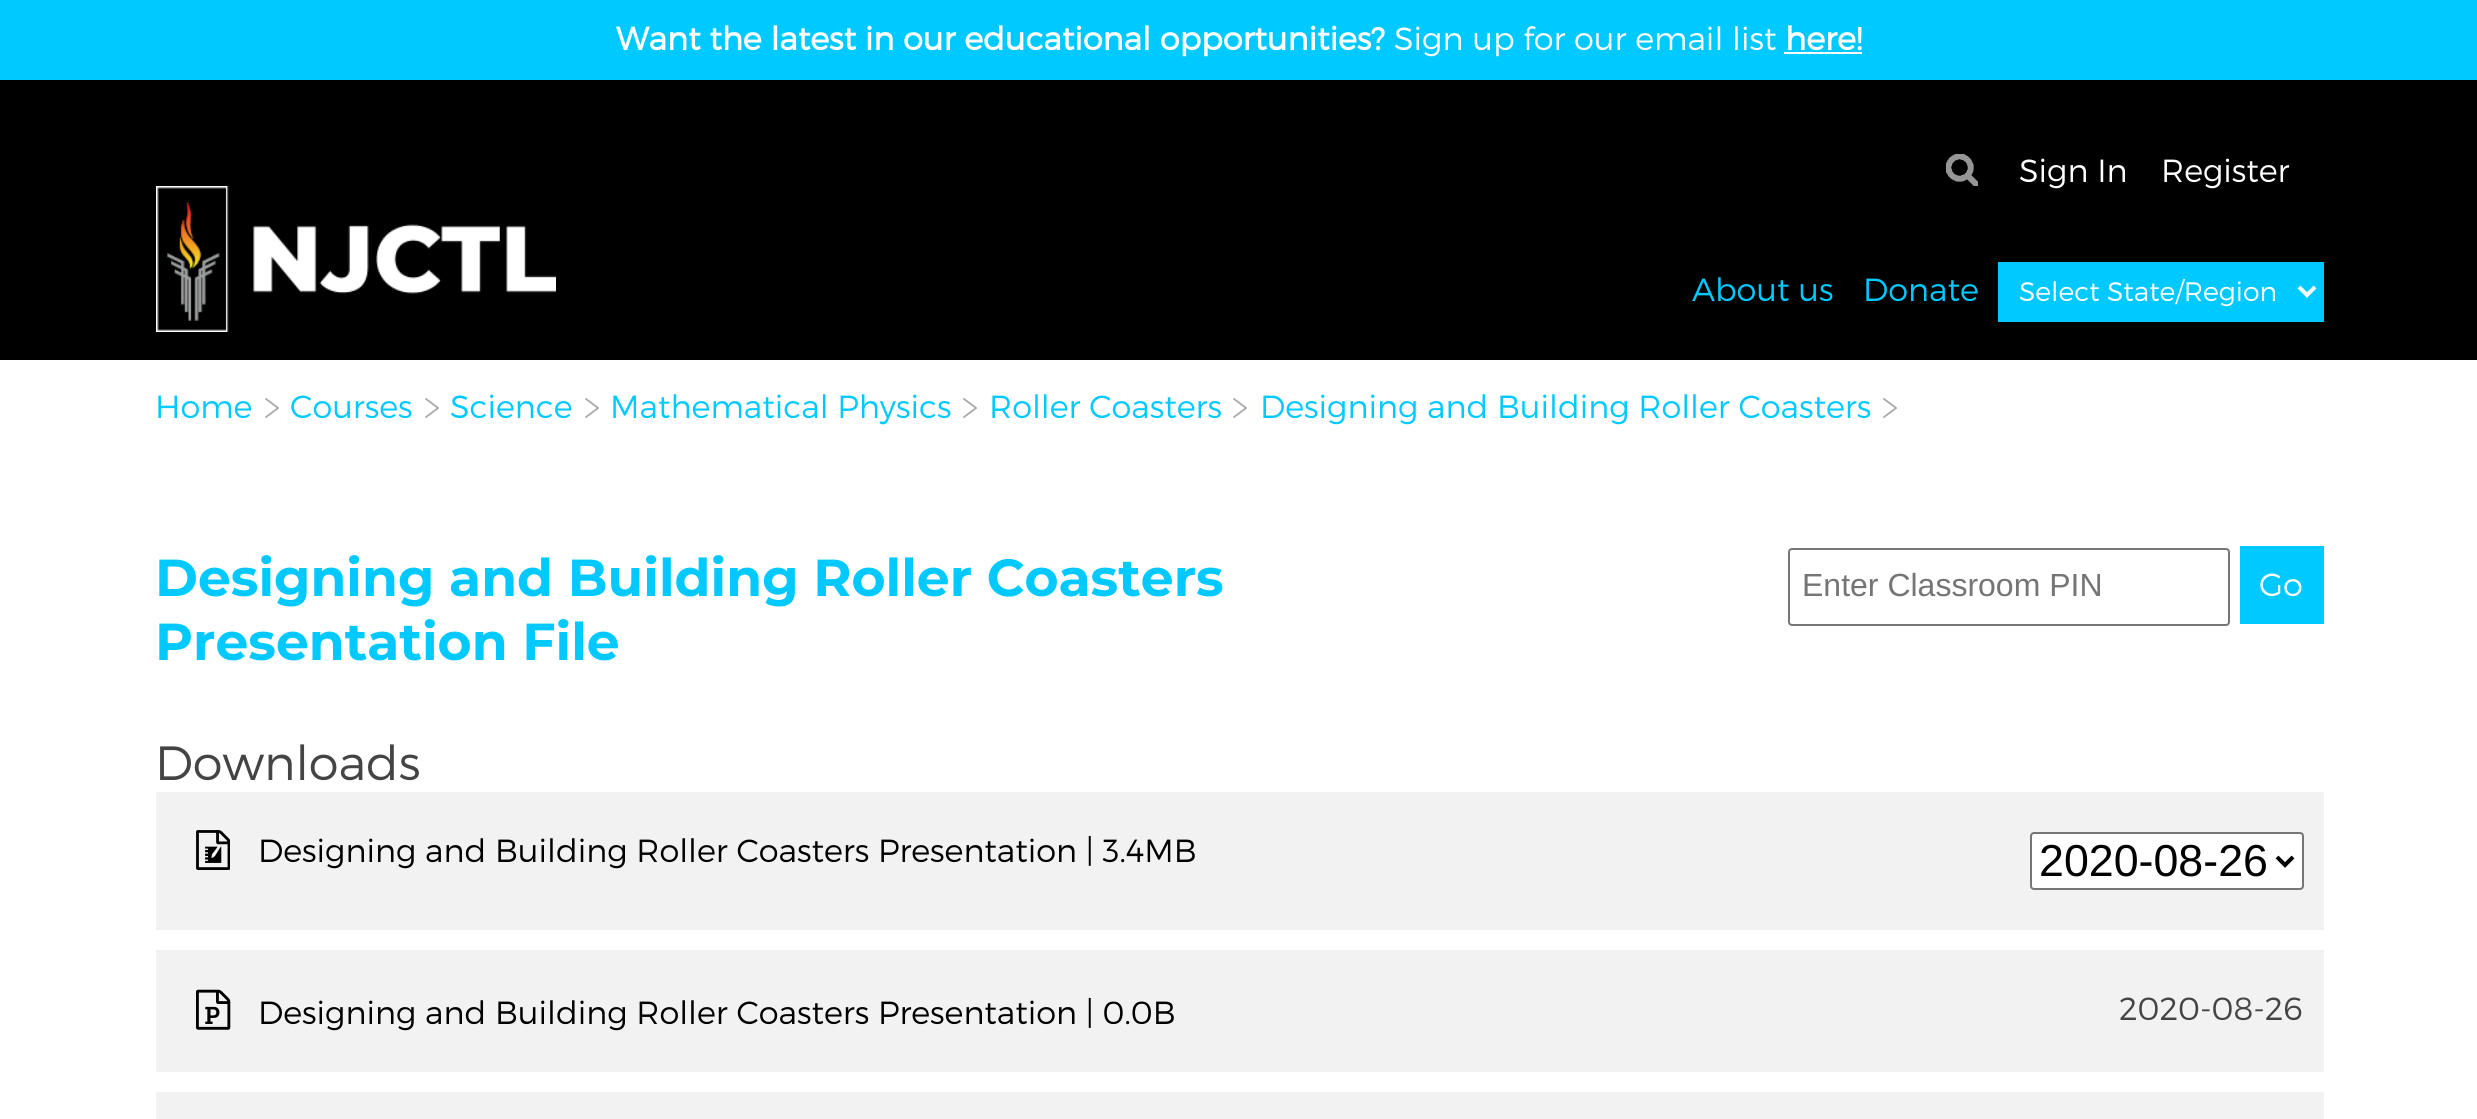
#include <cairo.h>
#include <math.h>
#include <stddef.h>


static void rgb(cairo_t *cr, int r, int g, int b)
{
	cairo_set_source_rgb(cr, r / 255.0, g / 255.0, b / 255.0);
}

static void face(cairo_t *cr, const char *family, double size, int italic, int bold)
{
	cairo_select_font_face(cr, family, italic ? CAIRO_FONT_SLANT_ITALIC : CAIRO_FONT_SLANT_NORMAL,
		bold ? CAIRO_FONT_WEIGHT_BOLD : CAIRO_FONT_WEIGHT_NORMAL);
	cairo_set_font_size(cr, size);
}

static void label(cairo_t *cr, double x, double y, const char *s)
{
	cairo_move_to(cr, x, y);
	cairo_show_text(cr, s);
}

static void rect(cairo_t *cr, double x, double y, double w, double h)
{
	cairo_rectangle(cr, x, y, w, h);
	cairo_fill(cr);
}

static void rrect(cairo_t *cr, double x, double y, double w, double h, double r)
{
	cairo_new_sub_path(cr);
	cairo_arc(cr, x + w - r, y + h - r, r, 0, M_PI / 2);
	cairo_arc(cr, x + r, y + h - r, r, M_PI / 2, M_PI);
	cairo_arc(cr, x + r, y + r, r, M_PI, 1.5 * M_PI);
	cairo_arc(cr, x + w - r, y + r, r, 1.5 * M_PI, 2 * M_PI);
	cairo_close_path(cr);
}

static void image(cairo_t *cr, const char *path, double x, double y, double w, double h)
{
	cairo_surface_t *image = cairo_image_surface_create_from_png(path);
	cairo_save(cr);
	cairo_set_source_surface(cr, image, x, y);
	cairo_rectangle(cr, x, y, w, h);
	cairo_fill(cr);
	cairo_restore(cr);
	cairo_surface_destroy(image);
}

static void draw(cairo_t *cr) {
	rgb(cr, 255, 255, 255);
	cairo_paint(cr);
	rgb(cr, 0, 0, 0);
	rect(cr, 0, 80, 2477, 280);
	rgb(cr, 0, 201, 255);
	rect(cr, 0, 0, 2477, 80);
	face(cr, "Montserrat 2", 32, 0, 1);
	rgb(cr, 255, 255, 255);
	label(cr, 616, 50, "Want the latest in our educational opportunities?");
	face(cr, "Montserrat Light", 32, 0, 0);
	label(cr, 1394, 50, "Sign up for our email list");
	face(cr, "Montserrat 2", 32, 0, 1);
	label(cr, 1785, 50, "here!");
	rect(cr, 1784, 52, 78, 2);
	image(cr, "image0.png", 156, 186, 400, 146);
	image(cr, "image1.png", 1946, 154, 32, 32);
	face(cr, "Montserrat Light", 32, 0, 0);
	label(cr, 2019, 182, "Sign In");
	label(cr, 2161, 182, "Register");
	rgb(cr, 0, 201, 255);
	label(cr, 1692, 301, "About us");
	label(cr, 1863, 301, "Donate");
	rect(cr, 1998, 262, 326, 60);
	cairo_new_path(cr);
	cairo_move_to(cr, 2299, 287);
	cairo_line_to(cr, 2307, 295);
	cairo_line_to(cr, 2315, 287);
	rgb(cr, 255, 255, 255);
	cairo_set_line_width(cr, 4);
	cairo_stroke(cr);
	face(cr, "Montserrat Light", 26.75, 0, 0);
	label(cr, 2019, 301, "Select State/Region");
	face(cr, "Montserrat Light", 32, 0, 0);
	rgb(cr, 0, 201, 255);
	label(cr, 155, 418, "Home");
	image(cr, "image2.png", 265, 398, 14, 20);
	label(cr, 290, 418, "Courses");
	image(cr, "image2.png", 425, 398, 14, 20);
	label(cr, 450, 418, "Science");
	image(cr, "image2.png", 585, 398, 14, 20);
	label(cr, 610, 418, "Mathematical Physics");
	image(cr, "image2.png", 963, 398, 14, 20);
	label(cr, 989, 418, "Roller Coasters");
	image(cr, "image2.png", 1233, 398, 14, 20);
	label(cr, 1260, 418, "Designing and Building Roller Coasters");
	image(cr, "image2.png", 1883, 398, 14, 20);
	face(cr, "Montserrat", 52, 0, 1);
	label(cr, 155, 596, "Designing and Building Roller Coasters");
	label(cr, 155, 660, "Presentation File");
	rrect(cr, 1789, 549, 440, 76, 3);
	rgb(cr, 118, 118, 118);
	cairo_set_line_width(cr, 2);
	cairo_stroke(cr);
	face(cr, "Liberation Sans", 32, 0, 0);
	rgb(cr, 117, 117, 117);
	label(cr, 1802, 596, "Enter Classroom PIN");
	rgb(cr, 0, 201, 255);
	rect(cr, 2240, 546, 84, 78);
	face(cr, "Montserrat Light", 32, 0, 0);
	rgb(cr, 255, 255, 255);
	label(cr, 2259, 596, "Go");
	face(cr, "Montserrat Light", 48, 0, 0);
	rgb(cr, 68, 68, 68);
	label(cr, 155, 780, "Downloads");
	rgb(cr, 242, 242, 242);
	rect(cr, 156, 792, 2168, 138);
	image(cr, "image3.png", 196, 830, 34, 40);
	face(cr, "Montserrat Light", 32, 0, 0);
	rgb(cr, 0, 0, 0);
	label(cr, 258, 862, "Designing and Building Roller Coasters Presentation | 3.4MB");
	rgb(cr, 255, 255, 255);
	rrect(cr, 2031, 833, 272, 56, 3);
	cairo_fill_preserve(cr);
	rgb(cr, 118, 118, 118);
	cairo_stroke(cr);
	cairo_new_path(cr);
	cairo_move_to(cr, 2277, 857);
	cairo_line_to(cr, 2285, 865);
	cairo_line_to(cr, 2293, 857);
	rgb(cr, 0, 0, 0);
	cairo_set_line_width(cr, 4);
	cairo_stroke(cr);
	face(cr, "Liberation Sans", 44.75, 0, 0);
	label(cr, 2039, 876, "2020-08-26");
	rgb(cr, 242, 242, 242);
	rect(cr, 156, 950, 2168, 122);
	image(cr, "image4.png", 196, 989, 35, 41);
	face(cr, "Montserrat Light", 32, 0, 0);
	rgb(cr, 0, 0, 0);
	label(cr, 258, 1024, "Designing and Building Roller Coasters Presentation | 0.0B");
	rgb(cr, 68, 68, 68);
	label(cr, 2119, 1020, "2020-08-26");
	rgb(cr, 242, 242, 242);
	rect(cr, 156, 1092, 2168, 27);
}

int main(void) {
	cairo_surface_t *surface = cairo_image_surface_create(CAIRO_FORMAT_RGB24, 2477, 1119);
	cairo_t *cr = cairo_create(surface);
	cairo_font_options_t *options = cairo_font_options_create();
	cairo_font_options_set_hint_metrics(options, CAIRO_HINT_METRICS_OFF);
	cairo_font_options_set_hint_style(options, CAIRO_HINT_STYLE_NONE);
	cairo_set_font_options(cr, options);
	cairo_set_miter_limit(cr, 4);
	draw(cr);
	cairo_surface_write_to_png(surface, "render.png");
	cairo_font_options_destroy(options);
	cairo_destroy(cr);
	cairo_surface_destroy(surface);
	return 0;
}
